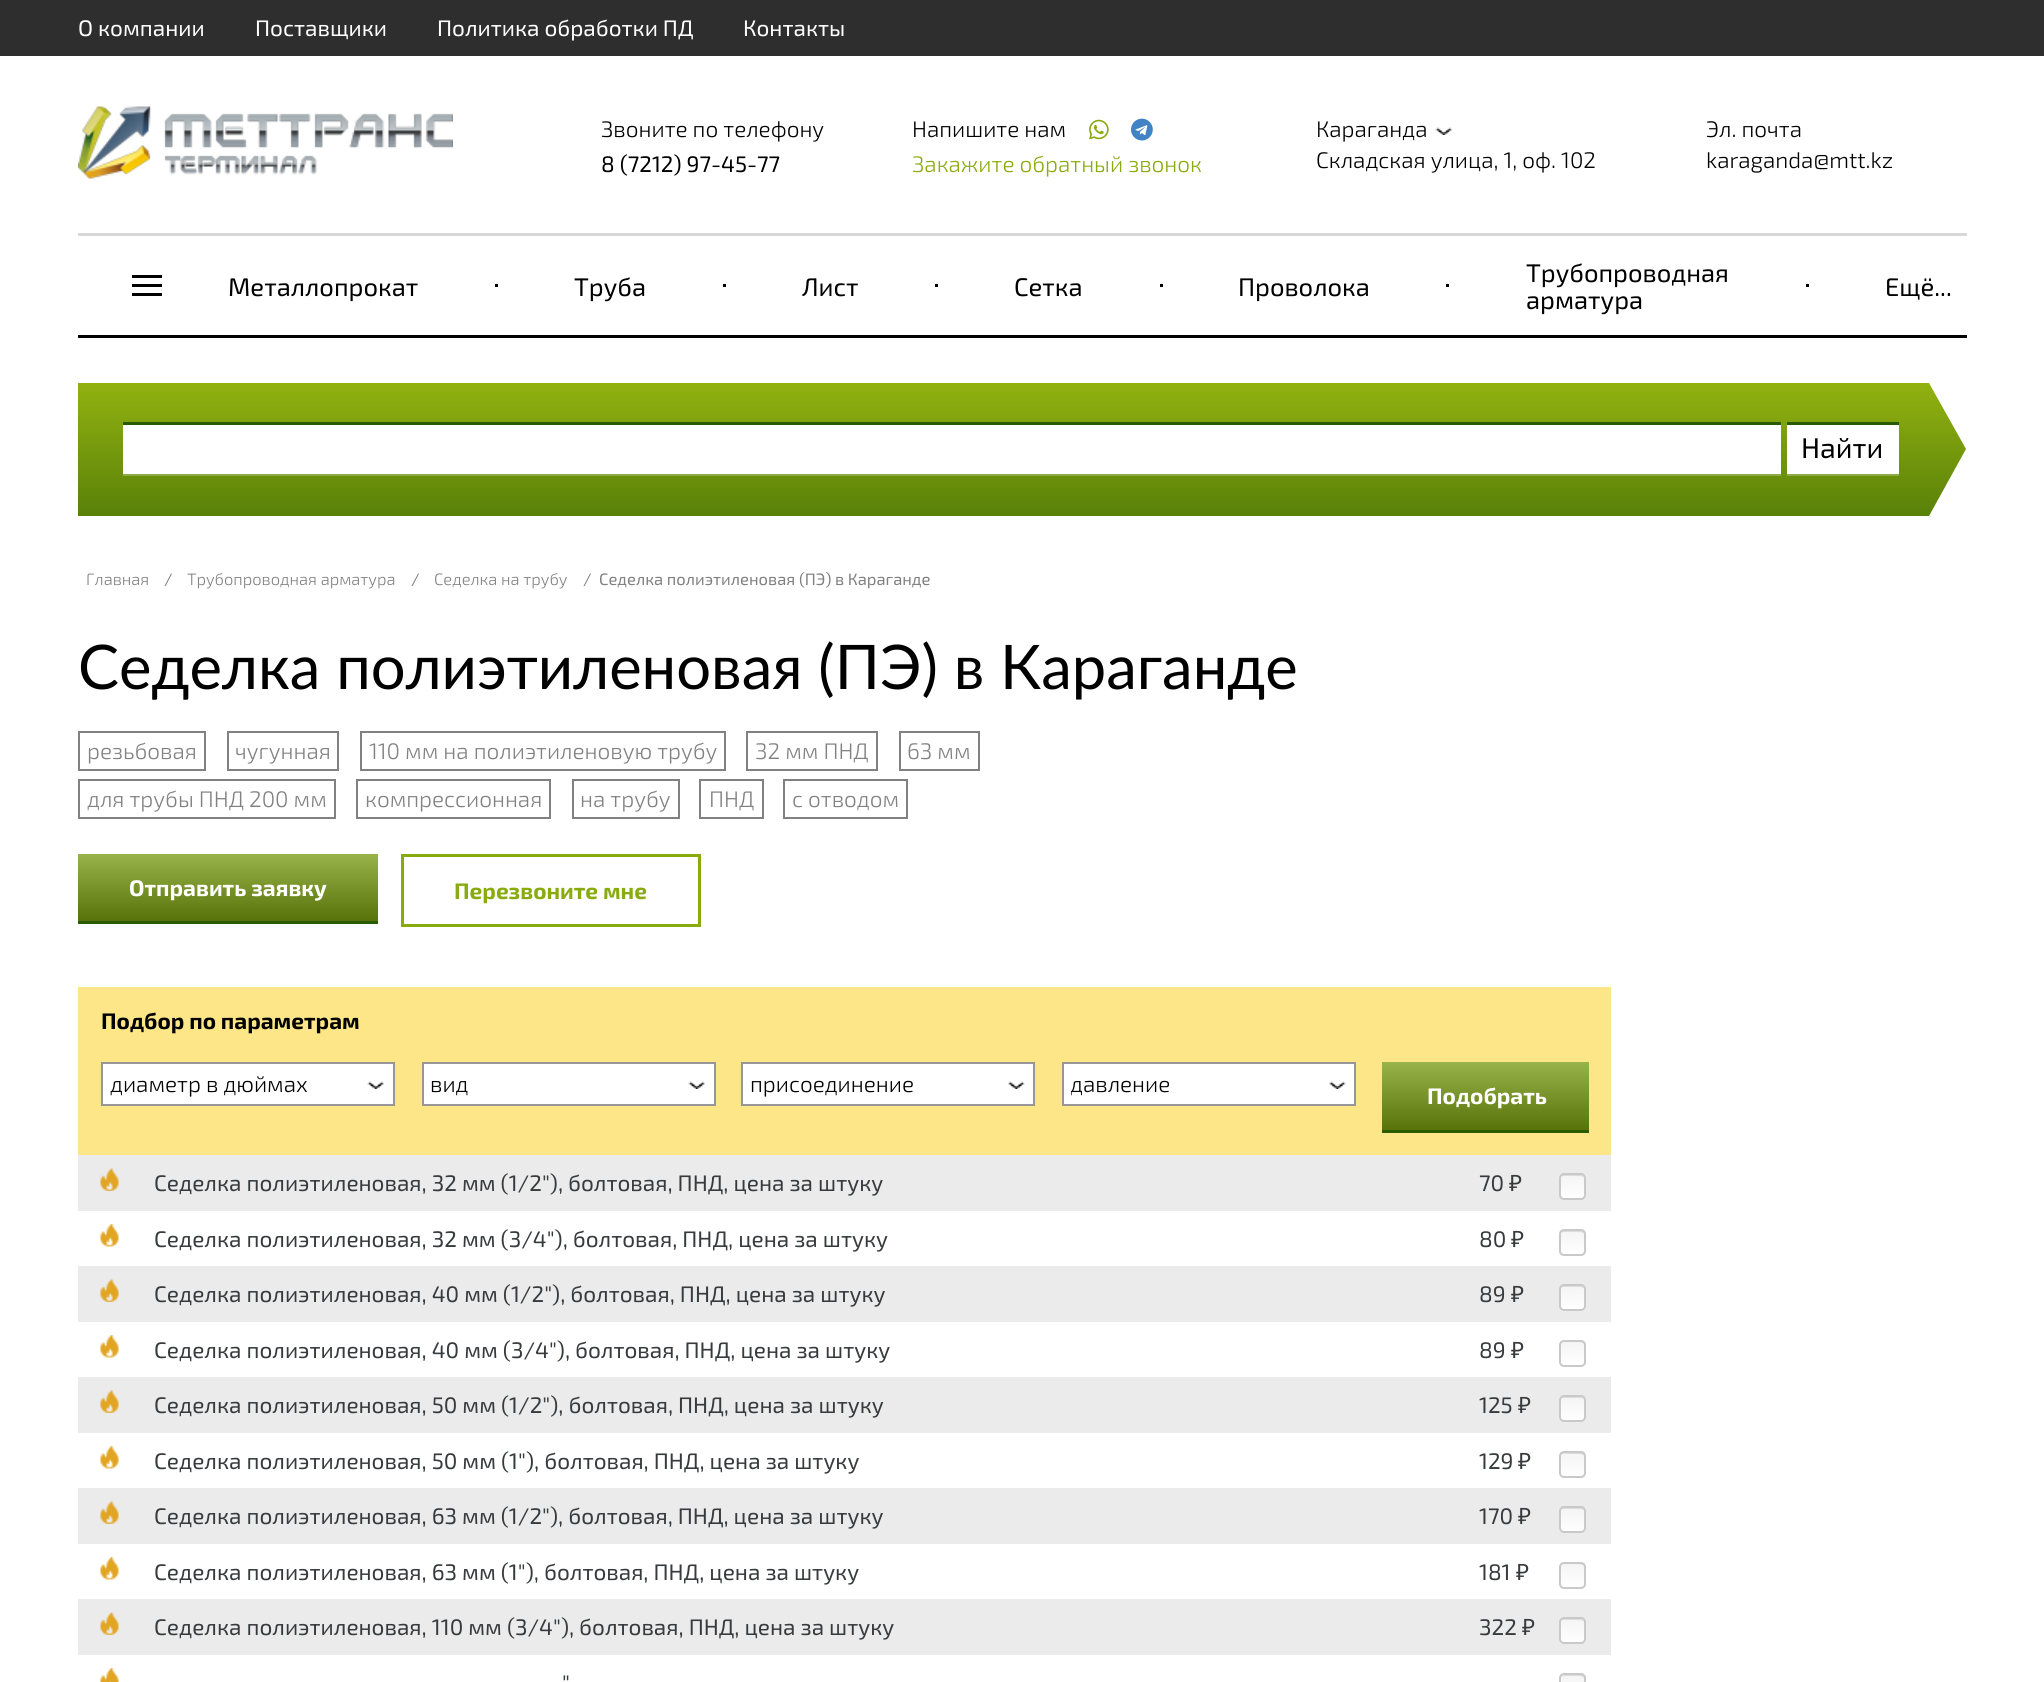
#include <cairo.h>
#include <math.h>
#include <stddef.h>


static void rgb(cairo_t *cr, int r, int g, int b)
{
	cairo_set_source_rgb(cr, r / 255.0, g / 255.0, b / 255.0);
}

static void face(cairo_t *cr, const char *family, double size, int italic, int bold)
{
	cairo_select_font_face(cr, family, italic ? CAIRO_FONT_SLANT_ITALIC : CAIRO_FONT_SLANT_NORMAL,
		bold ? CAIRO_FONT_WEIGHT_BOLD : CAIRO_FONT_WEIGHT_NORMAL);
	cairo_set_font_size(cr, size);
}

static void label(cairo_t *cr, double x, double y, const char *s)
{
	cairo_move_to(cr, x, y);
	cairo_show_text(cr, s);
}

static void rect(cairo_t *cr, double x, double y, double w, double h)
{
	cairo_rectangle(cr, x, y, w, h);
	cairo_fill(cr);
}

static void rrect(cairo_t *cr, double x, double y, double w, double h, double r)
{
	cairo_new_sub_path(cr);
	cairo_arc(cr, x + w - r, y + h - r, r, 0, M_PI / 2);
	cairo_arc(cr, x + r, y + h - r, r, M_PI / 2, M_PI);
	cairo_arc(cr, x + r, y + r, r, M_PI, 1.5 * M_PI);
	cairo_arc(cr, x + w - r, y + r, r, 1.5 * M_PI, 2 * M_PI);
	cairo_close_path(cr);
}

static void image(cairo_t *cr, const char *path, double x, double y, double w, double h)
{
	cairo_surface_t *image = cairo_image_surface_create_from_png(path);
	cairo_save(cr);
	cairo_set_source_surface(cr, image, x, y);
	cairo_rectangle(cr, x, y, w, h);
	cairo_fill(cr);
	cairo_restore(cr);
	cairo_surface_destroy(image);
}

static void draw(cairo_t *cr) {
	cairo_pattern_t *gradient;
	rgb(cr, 255, 255, 255);
	cairo_paint(cr);
	rgb(cr, 46, 46, 46);
	rect(cr, 0, 0, 2044, 56);
	face(cr, "Exo 2", 22.5, 0, 0);
	rgb(cr, 255, 255, 255);
	label(cr, 78, 36, "О компании");
	label(cr, 255, 36, "Поставщики");
	label(cr, 437, 36, "Политика обработки ПД");
	label(cr, 743, 36, "Контакты");
	rgb(cr, 216, 216, 216);
	rect(cr, 78, 233, 1889, 3);
	image(cr, "image0.png", 78, 106, 375, 73);
	face(cr, "Exo 2 Light", 22.5, 0, 0);
	rgb(cr, 0, 0, 0);
	label(cr, 601, 137, "Звоните по телефону");
	face(cr, "Exo 2", 22.5, 0, 0);
	label(cr, 601, 172, "8 (7212) 97-45-77");
	face(cr, "Exo 2 Light", 22.5, 0, 0);
	label(cr, 912, 137, "Напишите нам");
	image(cr, "image1.png", 1089, 119, 20, 21);
	image(cr, "image2.png", 1131, 118, 22, 23);
	rgb(cr, 138, 171, 15);
	label(cr, 912, 172, "Закажите обратный звонок");
	rgb(cr, 0, 0, 0);
	label(cr, 1316, 137, "Караганда");
	image(cr, "image3.png", 1435, 127, 17, 8);
	label(cr, 1316, 168, "Складская улица, 1, оф. 102");
	label(cr, 1706, 137, "Эл. почта");
	label(cr, 1706, 168, "karaganda@mtt.kz");
	rect(cr, 78, 335, 1889, 3);
	cairo_new_path(cr);
	cairo_move_to(cr, 133.5, 285.5);
	cairo_line_to(cr, 160.5, 285.5);
	cairo_move_to(cr, 133.5, 276.5);
	cairo_line_to(cr, 160.5, 276.5);
	cairo_move_to(cr, 133.5, 294.5);
	cairo_line_to(cr, 160.5, 294.5);
	cairo_set_line_width(cr, 3);
	cairo_set_line_cap(cr, CAIRO_LINE_CAP_SQUARE);
	cairo_set_line_join(cr, CAIRO_LINE_JOIN_ROUND);
	cairo_stroke(cr);
	face(cr, "Exo 2", 25.5, 0, 0);
	label(cr, 228, 296, "Металлопрокат");
	rect(cr, 495, 284, 3, 3);
	label(cr, 574, 296, "Труба");
	rect(cr, 723, 284, 3, 3);
	label(cr, 802, 296, "Лист");
	rect(cr, 935, 284, 3, 3);
	label(cr, 1014, 296, "Сетка");
	rect(cr, 1160, 284, 3, 3);
	label(cr, 1238, 296, "Проволока");
	rect(cr, 1446, 284, 3, 3);
	label(cr, 1526, 282, "Трубопроводная");
	label(cr, 1526, 309, "арматура");
	rect(cr, 1806, 284, 3, 3);
	label(cr, 1885, 296, "Ещё...");
	gradient = cairo_pattern_create_linear(1022, 382, 1022, 516);
	cairo_pattern_add_color_stop_rgba(gradient, 0, 0.573, 0.698, 0.063, 1);
	cairo_pattern_add_color_stop_rgba(gradient, 1, 0.349, 0.506, 0.035, 1);
	cairo_set_source(cr, gradient);
	cairo_pattern_destroy(gradient);
	cairo_new_path(cr);
	cairo_move_to(cr, 78, 383);
	cairo_line_to(cr, 78, 516);
	cairo_line_to(cr, 1929, 516);
	cairo_line_to(cr, 1966, 449);
	cairo_line_to(cr, 1929, 383);
	cairo_close_path(cr);
	cairo_fill(cr);
	rgb(cr, 255, 255, 255);
	rect(cr, 123, 425, 1658, 49);
	rgb(cr, 41, 91, 1);
	rect(cr, 123, 422, 1658, 3);
	rgb(cr, 143, 171, 72);
	rect(cr, 123, 474, 1658, 2);
	rgb(cr, 255, 255, 255);
	rect(cr, 1787, 425, 112, 49);
	rgb(cr, 41, 91, 1);
	rect(cr, 1787, 422, 112, 3);
	rgb(cr, 143, 171, 72);
	rect(cr, 1787, 474, 112, 2);
	face(cr, "Exo 2", 28.5, 0, 0);
	rgb(cr, 0, 0, 0);
	label(cr, 1801, 458, "Найти");
	face(cr, "Exo 2 Light", 16.5, 0, 0);
	rgb(cr, 129, 129, 129);
	label(cr, 86, 585, "Главная");
	face(cr, "Exo 2", 16.5, 0, 0);
	label(cr, 164, 585, "/");
	face(cr, "Exo 2 Light", 16.5, 0, 0);
	label(cr, 187, 585, "Трубопроводная арматура");
	face(cr, "Exo 2", 16.5, 0, 0);
	label(cr, 411, 585, "/");
	face(cr, "Exo 2 Light", 16.5, 0, 0);
	label(cr, 434, 585, "Седелка на трубу");
	face(cr, "Exo 2", 16.5, 0, 0);
	label(cr, 583, 585, "/");
	label(cr, 599, 585, "Седелка полиэтиленовая (ПЭ) в Караганде");
	face(cr, "Lato", 61.5, 0, 0);
	rgb(cr, 0, 0, 0);
	label(cr, 78, 689, "Седелка полиэтиленовая (ПЭ) в Караганде");
	cairo_rectangle(cr, 79, 732, 126, 38);
	rgb(cr, 129, 129, 129);
	cairo_set_line_width(cr, 2);
	cairo_set_line_cap(cr, CAIRO_LINE_CAP_BUTT);
	cairo_set_line_join(cr, CAIRO_LINE_JOIN_MITER);
	cairo_stroke(cr);
	face(cr, "Exo 2 Light", 22.5, 0, 0);
	label(cr, 87, 759, "резьбовая");
	cairo_rectangle(cr, 228, 732, 110, 38);
	cairo_stroke(cr);
	label(cr, 235, 759, "чугунная");
	cairo_rectangle(cr, 361, 732, 364, 38);
	cairo_stroke(cr);
	label(cr, 369, 759, "110 мм на полиэтиленовую трубу");
	cairo_rectangle(cr, 747, 732, 130, 38);
	cairo_stroke(cr);
	label(cr, 755, 759, "32 мм ПНД");
	cairo_rectangle(cr, 900, 732, 79, 38);
	cairo_stroke(cr);
	label(cr, 907, 759, "63 мм");
	cairo_rectangle(cr, 79, 780, 256, 38);
	cairo_stroke(cr);
	label(cr, 87, 807, "для трубы ПНД 200 мм");
	cairo_rectangle(cr, 357, 780, 193, 38);
	cairo_stroke(cr);
	label(cr, 365, 807, "компрессионная");
	cairo_rectangle(cr, 573, 780, 106, 38);
	cairo_stroke(cr);
	label(cr, 580, 807, "на трубу");
	cairo_rectangle(cr, 700, 780, 63, 38);
	cairo_stroke(cr);
	label(cr, 709, 807, "ПНД");
	cairo_rectangle(cr, 784, 780, 123, 38);
	cairo_stroke(cr);
	label(cr, 792, 807, "с отводом");
	gradient = cairo_pattern_create_linear(228, 854, 228, 921);
	cairo_pattern_add_color_stop_rgba(gradient, 0, 0.596, 0.702, 0.29, 1);
	cairo_pattern_add_color_stop_rgba(gradient, 1, 0.345, 0.451, 0.039, 1);
	cairo_set_source(cr, gradient);
	cairo_pattern_destroy(gradient);
	rect(cr, 78, 854, 300, 67);
	rgb(cr, 41, 91, 1);
	rect(cr, 78, 921, 300, 3);
	face(cr, "Exo 2", 22.5, 0, 1);
	rgb(cr, 255, 255, 255);
	label(cr, 129, 896, "Отправить заявку");
	cairo_rectangle(cr, 402.5, 855.5, 297, 70);
	rgb(cr, 138, 171, 15);
	cairo_set_line_width(cr, 3);
	cairo_stroke(cr);
	label(cr, 454, 899, "Перезвоните мне");
	rgb(cr, 253, 230, 135);
	rect(cr, 78, 987, 1533, 168);
	rgb(cr, 0, 0, 0);
	label(cr, 101, 1029, "Подбор по параметрам");
	rgb(cr, 255, 255, 255);
	cairo_rectangle(cr, 102, 1063, 292, 42);
	cairo_fill_preserve(cr);
	rgb(cr, 151, 151, 151);
	cairo_set_line_width(cr, 2);
	cairo_stroke(cr);
	face(cr, "Exo 2 Light", 22.5, 0, 0);
	rgb(cr, 0, 0, 0);
	label(cr, 110, 1092, "диаметр в дюймах");
	image(cr, "image3.png", 367, 1081, 17, 8);
	rgb(cr, 255, 255, 255);
	cairo_rectangle(cr, 423, 1063, 292, 42);
	cairo_fill_preserve(cr);
	rgb(cr, 151, 151, 151);
	cairo_stroke(cr);
	rgb(cr, 0, 0, 0);
	label(cr, 430, 1092, "вид");
	image(cr, "image3.png", 688, 1081, 17, 8);
	rgb(cr, 255, 255, 255);
	cairo_rectangle(cr, 742, 1063, 292, 42);
	cairo_fill_preserve(cr);
	rgb(cr, 151, 151, 151);
	cairo_stroke(cr);
	rgb(cr, 0, 0, 0);
	label(cr, 750, 1092, "присоединение");
	image(cr, "image4.png", 1008, 1081, 17, 8);
	rgb(cr, 255, 255, 255);
	cairo_rectangle(cr, 1063, 1063, 292, 42);
	cairo_fill_preserve(cr);
	rgb(cr, 151, 151, 151);
	cairo_stroke(cr);
	cairo_save(cr);
	cairo_rectangle(cr, 1071, 1064, 261, 40);
	cairo_clip(cr);
	rgb(cr, 0, 0, 0);
	label(cr, 1070, 1092, "давление");
	cairo_restore(cr);
	image(cr, "image5.png", 1329, 1081, 17, 8);
	gradient = cairo_pattern_create_linear(1485, 1062, 1485, 1130);
	cairo_pattern_add_color_stop_rgba(gradient, 0, 0.596, 0.702, 0.29, 1);
	cairo_pattern_add_color_stop_rgba(gradient, 1, 0.345, 0.451, 0.039, 1);
	cairo_set_source(cr, gradient);
	cairo_pattern_destroy(gradient);
	rect(cr, 1382, 1062, 207, 68);
	rgb(cr, 41, 91, 1);
	rect(cr, 1382, 1130, 207, 3);
	face(cr, "Exo 2", 22.5, 0, 1);
	rgb(cr, 255, 255, 255);
	label(cr, 1427, 1104, "Подобрать");
	rgb(cr, 235, 235, 235);
	rect(cr, 78, 1155, 1533, 56);
	image(cr, "image6.png", 100, 1168, 19, 23);
	face(cr, "Exo 2", 22.5, 0, 0);
	rgb(cr, 56, 59, 61);
	label(cr, 154, 1191, "Седелка полиэтиленовая, 32 мм (1/2\"), болтовая, ПНД, цена за штуку");
	label(cr, 1479, 1191, "70");
	face(cr, "Noto Sans", 22.5, 0, 0);
	label(cr, 1509, 1191, "₽");
	cairo_save(cr);
	rrect(cr, 1559, 1173, 27, 27, 5);
	cairo_clip(cr);
	gradient = cairo_pattern_create_linear(1572, 1175, 1572, 1199);
	cairo_pattern_add_color_stop_rgba(gradient, 0, 0.957, 0.957, 0.957, 1);
	cairo_pattern_add_color_stop_rgba(gradient, 1, 1, 1, 1, 1);
	cairo_set_source(cr, gradient);
	cairo_pattern_destroy(gradient);
	rect(cr, 1559, 1175, 27, 24);
	cairo_restore(cr);
	rgb(cr, 221, 221, 221);
	cairo_new_path(cr);
	cairo_move_to(cr, 1563, 1176);
	cairo_line_to(cr, 1578, 1176);
	cairo_curve_to(cr, 1581.5, 1176, 1583.5, 1176.5, 1584, 1178);
	cairo_curve_to(cr, 1584, 1176.5, 1582.5, 1175, 1581, 1175);
	cairo_line_to(cr, 1563, 1175);
	cairo_curve_to(cr, 1561.5, 1175, 1560, 1176.5, 1560, 1178);
	cairo_line_to(cr, 1560, 1178.5);
	cairo_curve_to(cr, 1560.5, 1177, 1561.5, 1176, 1563, 1176);
	cairo_close_path(cr);
	cairo_fill(cr);
	rrect(cr, 1560, 1174, 25, 25, 4);
	rgb(cr, 201, 201, 201);
	cairo_stroke(cr);
	image(cr, "image7.png", 100, 1224, 19, 23);
	face(cr, "Exo 2", 22.5, 0, 0);
	rgb(cr, 56, 59, 61);
	label(cr, 154, 1247, "Седелка полиэтиленовая, 32 мм (3/4\"), болтовая, ПНД, цена за штуку");
	label(cr, 1479, 1247, "80");
	face(cr, "Noto Sans", 22.5, 0, 0);
	label(cr, 1511, 1247, "₽");
	cairo_save(cr);
	rrect(cr, 1559, 1229, 27, 27, 5);
	cairo_clip(cr);
	gradient = cairo_pattern_create_linear(1572, 1230, 1572, 1254);
	cairo_pattern_add_color_stop_rgba(gradient, 0, 0.957, 0.957, 0.957, 1);
	cairo_pattern_add_color_stop_rgba(gradient, 1, 1, 1, 1, 1);
	cairo_set_source(cr, gradient);
	cairo_pattern_destroy(gradient);
	rect(cr, 1559, 1230, 27, 24);
	cairo_restore(cr);
	rgb(cr, 221, 221, 221);
	cairo_new_path(cr);
	cairo_move_to(cr, 1563, 1232);
	cairo_line_to(cr, 1578, 1232);
	cairo_curve_to(cr, 1581.5, 1232, 1583.5, 1232.5, 1584, 1234);
	cairo_curve_to(cr, 1584, 1229.5, 1581.5, 1230, 1578, 1230);
	cairo_line_to(cr, 1566, 1230);
	cairo_curve_to(cr, 1562, 1230, 1560, 1230, 1560, 1234.5);
	cairo_curve_to(cr, 1560.5, 1233, 1561.5, 1232, 1563, 1232);
	cairo_close_path(cr);
	cairo_fill(cr);
	rrect(cr, 1560, 1230, 25, 25, 4);
	rgb(cr, 201, 201, 201);
	cairo_stroke(cr);
	rgb(cr, 235, 235, 235);
	rect(cr, 78, 1266, 1533, 56);
	image(cr, "image6.png", 100, 1279, 19, 23);
	face(cr, "Exo 2", 22.5, 0, 0);
	rgb(cr, 56, 59, 61);
	label(cr, 154, 1302, "Седелка полиэтиленовая, 40 мм (1/2\"), болтовая, ПНД, цена за штуку");
	label(cr, 1479, 1302, "89");
	face(cr, "Noto Sans", 22.5, 0, 0);
	label(cr, 1511, 1302, "₽");
	cairo_save(cr);
	rrect(cr, 1559, 1284, 27, 27, 5);
	cairo_clip(cr);
	gradient = cairo_pattern_create_linear(1572, 1286, 1572, 1310);
	cairo_pattern_add_color_stop_rgba(gradient, 0, 0.957, 0.957, 0.957, 1);
	cairo_pattern_add_color_stop_rgba(gradient, 1, 1, 1, 1, 1);
	cairo_set_source(cr, gradient);
	cairo_pattern_destroy(gradient);
	rect(cr, 1559, 1286, 27, 24);
	cairo_restore(cr);
	rgb(cr, 221, 221, 221);
	cairo_new_path(cr);
	cairo_move_to(cr, 1563, 1287);
	cairo_line_to(cr, 1578, 1287);
	cairo_curve_to(cr, 1581.5, 1287, 1583.5, 1287.5, 1584, 1289);
	cairo_curve_to(cr, 1584, 1287.5, 1582.5, 1286, 1581, 1286);
	cairo_line_to(cr, 1563, 1286);
	cairo_curve_to(cr, 1561.5, 1286, 1560, 1287.5, 1560, 1289);
	cairo_line_to(cr, 1560, 1289.5);
	cairo_curve_to(cr, 1560.5, 1288, 1561.5, 1287, 1563, 1287);
	cairo_close_path(cr);
	cairo_fill(cr);
	rrect(cr, 1560, 1285, 25, 25, 4);
	rgb(cr, 201, 201, 201);
	cairo_stroke(cr);
	image(cr, "image7.png", 100, 1335, 19, 23);
	face(cr, "Exo 2", 22.5, 0, 0);
	rgb(cr, 56, 59, 61);
	label(cr, 154, 1358, "Седелка полиэтиленовая, 40 мм (3/4\"), болтовая, ПНД, цена за штуку");
	label(cr, 1479, 1358, "89");
	face(cr, "Noto Sans", 22.5, 0, 0);
	label(cr, 1511, 1358, "₽");
	cairo_save(cr);
	rrect(cr, 1559, 1340, 27, 27, 5);
	cairo_clip(cr);
	gradient = cairo_pattern_create_linear(1572, 1341, 1572, 1365);
	cairo_pattern_add_color_stop_rgba(gradient, 0, 0.957, 0.957, 0.957, 1);
	cairo_pattern_add_color_stop_rgba(gradient, 1, 1, 1, 1, 1);
	cairo_set_source(cr, gradient);
	cairo_pattern_destroy(gradient);
	rect(cr, 1559, 1341, 27, 24);
	cairo_restore(cr);
	rgb(cr, 221, 221, 221);
	cairo_new_path(cr);
	cairo_move_to(cr, 1563, 1342);
	cairo_line_to(cr, 1578, 1342);
	cairo_curve_to(cr, 1581.5, 1342, 1583.5, 1343, 1584, 1344);
	cairo_curve_to(cr, 1584, 1340.5, 1580.5, 1341, 1578, 1341);
	cairo_line_to(cr, 1566, 1341);
	cairo_curve_to(cr, 1562.5, 1341, 1560, 1340.5, 1560, 1344.5);
	cairo_curve_to(cr, 1560.5, 1343, 1561.5, 1342, 1563, 1342);
	cairo_close_path(cr);
	cairo_fill(cr);
	rrect(cr, 1560, 1341, 25, 25, 4);
	rgb(cr, 201, 201, 201);
	cairo_stroke(cr);
	rgb(cr, 235, 235, 235);
	rect(cr, 78, 1377, 1533, 56);
	image(cr, "image6.png", 100, 1390, 19, 23);
	face(cr, "Exo 2", 22.5, 0, 0);
	rgb(cr, 56, 59, 61);
	label(cr, 154, 1413, "Седелка полиэтиленовая, 50 мм (1/2\"), болтовая, ПНД, цена за штуку");
	label(cr, 1479, 1413, "125");
	face(cr, "Noto Sans", 22.5, 0, 0);
	label(cr, 1518, 1413, "₽");
	cairo_save(cr);
	rrect(cr, 1559, 1395, 27, 27, 5);
	cairo_clip(cr);
	gradient = cairo_pattern_create_linear(1572, 1397, 1572, 1421);
	cairo_pattern_add_color_stop_rgba(gradient, 0, 0.957, 0.957, 0.957, 1);
	cairo_pattern_add_color_stop_rgba(gradient, 1, 1, 1, 1, 1);
	cairo_set_source(cr, gradient);
	cairo_pattern_destroy(gradient);
	rect(cr, 1559, 1397, 27, 24);
	cairo_restore(cr);
	rgb(cr, 221, 221, 221);
	cairo_new_path(cr);
	cairo_move_to(cr, 1563, 1398);
	cairo_line_to(cr, 1578, 1398);
	cairo_curve_to(cr, 1581.5, 1398, 1583.5, 1398.5, 1584, 1400);
	cairo_curve_to(cr, 1584, 1398.5, 1582.5, 1397, 1581, 1397);
	cairo_line_to(cr, 1563, 1397);
	cairo_curve_to(cr, 1561.5, 1397, 1560, 1398.5, 1560, 1400);
	cairo_line_to(cr, 1560, 1400.5);
	cairo_curve_to(cr, 1560.5, 1399, 1561.5, 1398, 1563, 1398);
	cairo_close_path(cr);
	cairo_fill(cr);
	rrect(cr, 1560, 1396, 25, 25, 4);
	rgb(cr, 201, 201, 201);
	cairo_stroke(cr);
	image(cr, "image7.png", 100, 1446, 19, 23);
	face(cr, "Exo 2", 22.5, 0, 0);
	rgb(cr, 56, 59, 61);
	label(cr, 154, 1469, "Седелка полиэтиленовая, 50 мм (1\"), болтовая, ПНД, цена за штуку");
	label(cr, 1479, 1469, "129");
	face(cr, "Noto Sans", 22.5, 0, 0);
	label(cr, 1518, 1469, "₽");
	cairo_save(cr);
	rrect(cr, 1559, 1451, 27, 27, 5);
	cairo_clip(cr);
	gradient = cairo_pattern_create_linear(1572, 1452, 1572, 1476);
	cairo_pattern_add_color_stop_rgba(gradient, 0, 0.957, 0.957, 0.957, 1);
	cairo_pattern_add_color_stop_rgba(gradient, 1, 1, 1, 1, 1);
	cairo_set_source(cr, gradient);
	cairo_pattern_destroy(gradient);
	rect(cr, 1559, 1452, 27, 24);
	cairo_restore(cr);
	rgb(cr, 221, 221, 221);
	cairo_new_path(cr);
	cairo_move_to(cr, 1563, 1454);
	cairo_line_to(cr, 1578, 1454);
	cairo_curve_to(cr, 1581.5, 1454, 1583.5, 1454.5, 1584, 1456);
	cairo_curve_to(cr, 1584, 1451.5, 1581.5, 1452, 1578, 1452);
	cairo_line_to(cr, 1566, 1452);
	cairo_curve_to(cr, 1562, 1452, 1560, 1452, 1560, 1456.5);
	cairo_curve_to(cr, 1560.5, 1455, 1561.5, 1454, 1563, 1454);
	cairo_close_path(cr);
	cairo_fill(cr);
	rrect(cr, 1560, 1452, 25, 25, 4);
	rgb(cr, 201, 201, 201);
	cairo_stroke(cr);
	rgb(cr, 235, 235, 235);
	rect(cr, 78, 1488, 1533, 56);
	image(cr, "image6.png", 100, 1501, 19, 23);
	face(cr, "Exo 2", 22.5, 0, 0);
	rgb(cr, 56, 59, 61);
	label(cr, 154, 1524, "Седелка полиэтиленовая, 63 мм (1/2\"), болтовая, ПНД, цена за штуку");
	label(cr, 1479, 1524, "170");
	face(cr, "Noto Sans", 22.5, 0, 0);
	label(cr, 1518, 1524, "₽");
	cairo_save(cr);
	rrect(cr, 1559, 1506, 27, 27, 5);
	cairo_clip(cr);
	gradient = cairo_pattern_create_linear(1572, 1508, 1572, 1532);
	cairo_pattern_add_color_stop_rgba(gradient, 0, 0.957, 0.957, 0.957, 1);
	cairo_pattern_add_color_stop_rgba(gradient, 1, 1, 1, 1, 1);
	cairo_set_source(cr, gradient);
	cairo_pattern_destroy(gradient);
	rect(cr, 1559, 1508, 27, 24);
	cairo_restore(cr);
	rgb(cr, 221, 221, 221);
	cairo_new_path(cr);
	cairo_move_to(cr, 1563, 1509);
	cairo_line_to(cr, 1578, 1509);
	cairo_curve_to(cr, 1581.5, 1509, 1583.5, 1509.5, 1584, 1511);
	cairo_curve_to(cr, 1584, 1509.5, 1582.5, 1508, 1581, 1508);
	cairo_line_to(cr, 1563, 1508);
	cairo_curve_to(cr, 1561.5, 1508, 1560, 1509.5, 1560, 1511);
	cairo_line_to(cr, 1560, 1511.5);
	cairo_curve_to(cr, 1560.5, 1510, 1561.5, 1509, 1563, 1509);
	cairo_close_path(cr);
	cairo_fill(cr);
	rrect(cr, 1560, 1507, 25, 25, 4);
	rgb(cr, 201, 201, 201);
	cairo_stroke(cr);
	image(cr, "image7.png", 100, 1557, 19, 23);
	face(cr, "Exo 2", 22.5, 0, 0);
	rgb(cr, 56, 59, 61);
	label(cr, 154, 1580, "Седелка полиэтиленовая, 63 мм (1\"), болтовая, ПНД, цена за штуку");
	label(cr, 1479, 1580, "181");
	face(cr, "Noto Sans", 22.5, 0, 0);
	label(cr, 1516, 1580, "₽");
	cairo_save(cr);
	rrect(cr, 1559, 1562, 27, 27, 5);
	cairo_clip(cr);
	gradient = cairo_pattern_create_linear(1572, 1563, 1572, 1587);
	cairo_pattern_add_color_stop_rgba(gradient, 0, 0.957, 0.957, 0.957, 1);
	cairo_pattern_add_color_stop_rgba(gradient, 1, 1, 1, 1, 1);
	cairo_set_source(cr, gradient);
	cairo_pattern_destroy(gradient);
	rect(cr, 1559, 1563, 27, 24);
	cairo_restore(cr);
	rgb(cr, 221, 221, 221);
	cairo_new_path(cr);
	cairo_move_to(cr, 1563, 1564);
	cairo_line_to(cr, 1578, 1564);
	cairo_curve_to(cr, 1581.5, 1564, 1583.5, 1565, 1584, 1566);
	cairo_curve_to(cr, 1584, 1562.5, 1580.5, 1563, 1578, 1563);
	cairo_line_to(cr, 1566, 1563);
	cairo_curve_to(cr, 1562.5, 1563, 1560, 1562.5, 1560, 1566.5);
	cairo_curve_to(cr, 1560.5, 1565, 1561.5, 1564, 1563, 1564);
	cairo_close_path(cr);
	cairo_fill(cr);
	rrect(cr, 1560, 1563, 25, 25, 4);
	rgb(cr, 201, 201, 201);
	cairo_stroke(cr);
	rgb(cr, 235, 235, 235);
	rect(cr, 78, 1599, 1533, 56);
	image(cr, "image6.png", 100, 1612, 19, 23);
	face(cr, "Exo 2", 22.5, 0, 0);
	rgb(cr, 56, 59, 61);
	label(cr, 154, 1635, "Седелка полиэтиленовая, 110 мм (3/4\"), болтовая, ПНД, цена за штуку");
	label(cr, 1479, 1635, "322");
	face(cr, "Noto Sans", 22.5, 0, 0);
	label(cr, 1522, 1635, "₽");
	cairo_save(cr);
	rrect(cr, 1559, 1617, 27, 27, 5);
	cairo_clip(cr);
	gradient = cairo_pattern_create_linear(1572, 1619, 1572, 1643);
	cairo_pattern_add_color_stop_rgba(gradient, 0, 0.957, 0.957, 0.957, 1);
	cairo_pattern_add_color_stop_rgba(gradient, 1, 1, 1, 1, 1);
	cairo_set_source(cr, gradient);
	cairo_pattern_destroy(gradient);
	rect(cr, 1559, 1619, 27, 24);
	cairo_restore(cr);
	rgb(cr, 221, 221, 221);
	cairo_new_path(cr);
	cairo_move_to(cr, 1563, 1620);
	cairo_line_to(cr, 1578, 1620);
	cairo_curve_to(cr, 1581.5, 1620, 1583.5, 1620.5, 1584, 1622);
	cairo_curve_to(cr, 1584, 1620.5, 1582.5, 1619, 1581, 1619);
	cairo_line_to(cr, 1563, 1619);
	cairo_curve_to(cr, 1561.5, 1619, 1560, 1620.5, 1560, 1622);
	cairo_line_to(cr, 1560, 1622.5);
	cairo_curve_to(cr, 1560.5, 1621, 1561.5, 1620, 1563, 1620);
	cairo_close_path(cr);
	cairo_fill(cr);
	rrect(cr, 1560, 1618, 25, 25, 4);
	rgb(cr, 201, 201, 201);
	cairo_stroke(cr);
	image(cr, "image8.png", 100, 1668, 19, 14);
	face(cr, "Exo 2", 22.5, 0, 0);
	rgb(cr, 56, 59, 61);
	label(cr, 562, 1691, "\"");
	cairo_save(cr);
	rrect(cr, 1559, 1673, 27, 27, 5);
	cairo_clip(cr);
	gradient = cairo_pattern_create_linear(1572, 1674, 1572, 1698);
	cairo_pattern_add_color_stop_rgba(gradient, 0, 0.957, 0.957, 0.957, 1);
	cairo_pattern_add_color_stop_rgba(gradient, 1, 1, 1, 1, 1);
	cairo_set_source(cr, gradient);
	cairo_pattern_destroy(gradient);
	rect(cr, 1559, 1674, 27, 8);
	cairo_restore(cr);
	rgb(cr, 221, 221, 221);
	cairo_new_path(cr);
	cairo_move_to(cr, 1563, 1676);
	cairo_line_to(cr, 1578, 1676);
	cairo_curve_to(cr, 1581.5, 1676, 1583.5, 1676.5, 1584, 1678);
	cairo_curve_to(cr, 1584, 1673.5, 1581.5, 1674, 1578, 1674);
	cairo_line_to(cr, 1566, 1674);
	cairo_curve_to(cr, 1562, 1674, 1560, 1674, 1560, 1678.5);
	cairo_curve_to(cr, 1560.5, 1677, 1561.5, 1676, 1563, 1676);
	cairo_close_path(cr);
	cairo_fill(cr);
	rrect(cr, 1560, 1674, 25, 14, 4);
	rgb(cr, 201, 201, 201);
	cairo_stroke(cr);
}

int main(void) {
	cairo_surface_t *surface = cairo_image_surface_create(CAIRO_FORMAT_RGB24, 2044, 1682);
	cairo_t *cr = cairo_create(surface);
	cairo_font_options_t *options = cairo_font_options_create();
	cairo_font_options_set_hint_metrics(options, CAIRO_HINT_METRICS_OFF);
	cairo_font_options_set_hint_style(options, CAIRO_HINT_STYLE_NONE);
	cairo_set_font_options(cr, options);
	cairo_set_miter_limit(cr, 4);
	draw(cr);
	cairo_surface_write_to_png(surface, "render.png");
	cairo_font_options_destroy(options);
	cairo_destroy(cr);
	cairo_surface_destroy(surface);
	return 0;
}
